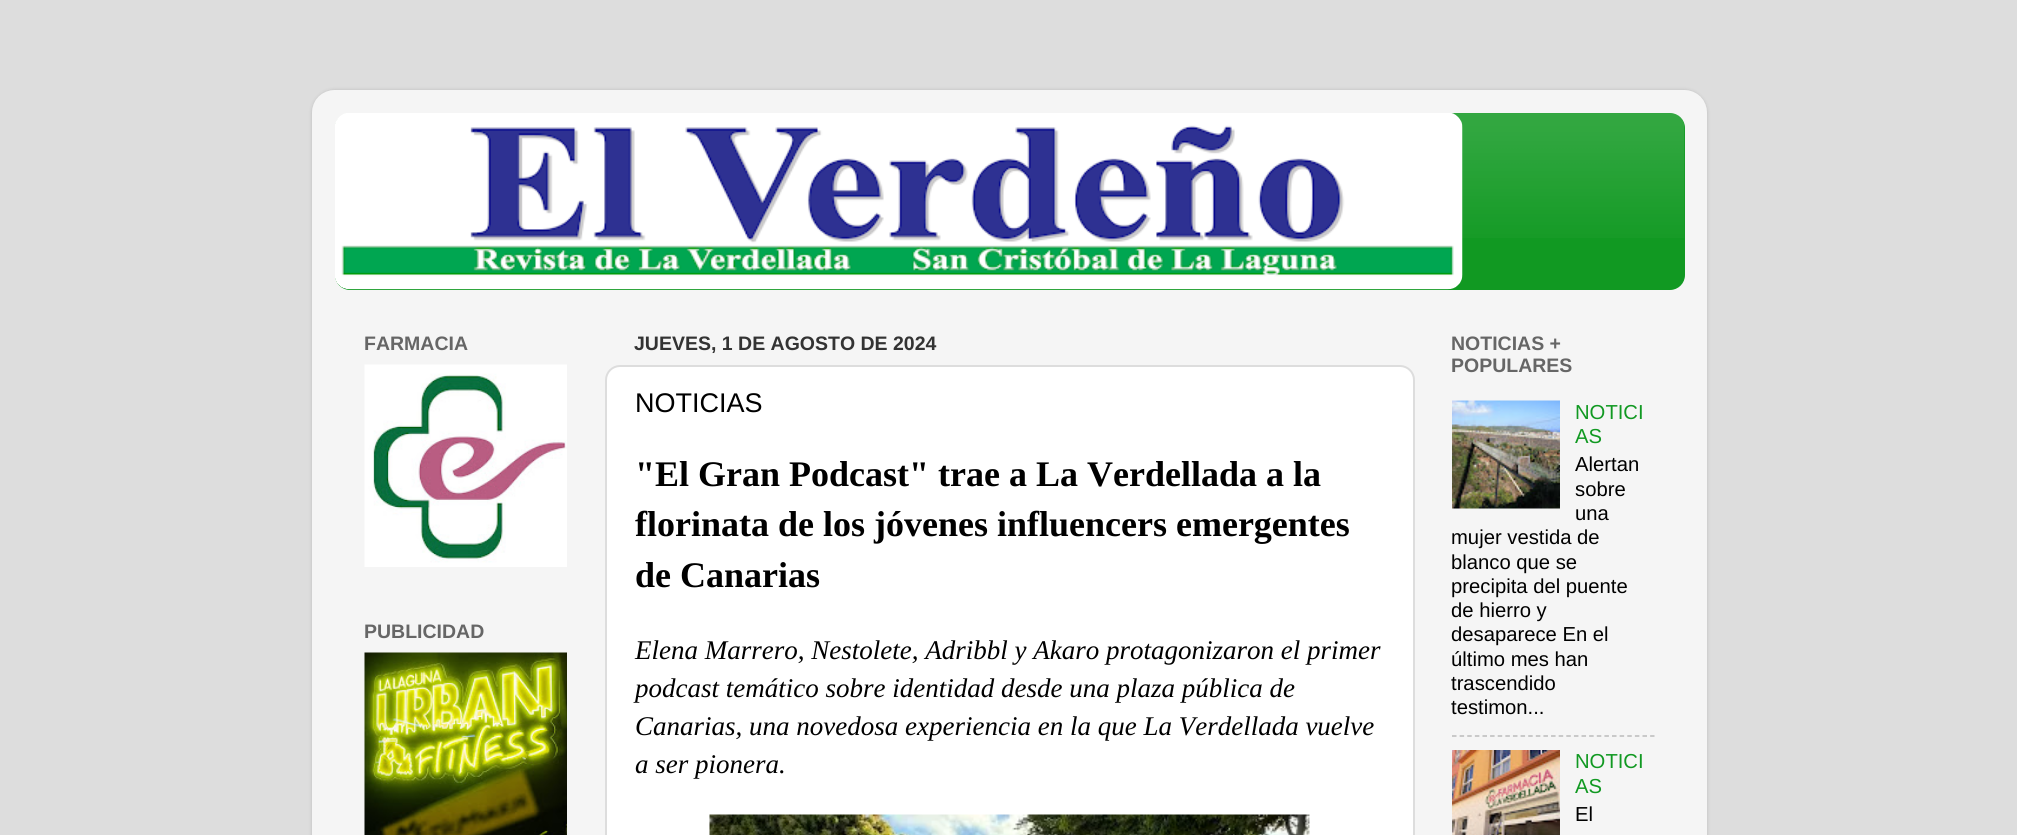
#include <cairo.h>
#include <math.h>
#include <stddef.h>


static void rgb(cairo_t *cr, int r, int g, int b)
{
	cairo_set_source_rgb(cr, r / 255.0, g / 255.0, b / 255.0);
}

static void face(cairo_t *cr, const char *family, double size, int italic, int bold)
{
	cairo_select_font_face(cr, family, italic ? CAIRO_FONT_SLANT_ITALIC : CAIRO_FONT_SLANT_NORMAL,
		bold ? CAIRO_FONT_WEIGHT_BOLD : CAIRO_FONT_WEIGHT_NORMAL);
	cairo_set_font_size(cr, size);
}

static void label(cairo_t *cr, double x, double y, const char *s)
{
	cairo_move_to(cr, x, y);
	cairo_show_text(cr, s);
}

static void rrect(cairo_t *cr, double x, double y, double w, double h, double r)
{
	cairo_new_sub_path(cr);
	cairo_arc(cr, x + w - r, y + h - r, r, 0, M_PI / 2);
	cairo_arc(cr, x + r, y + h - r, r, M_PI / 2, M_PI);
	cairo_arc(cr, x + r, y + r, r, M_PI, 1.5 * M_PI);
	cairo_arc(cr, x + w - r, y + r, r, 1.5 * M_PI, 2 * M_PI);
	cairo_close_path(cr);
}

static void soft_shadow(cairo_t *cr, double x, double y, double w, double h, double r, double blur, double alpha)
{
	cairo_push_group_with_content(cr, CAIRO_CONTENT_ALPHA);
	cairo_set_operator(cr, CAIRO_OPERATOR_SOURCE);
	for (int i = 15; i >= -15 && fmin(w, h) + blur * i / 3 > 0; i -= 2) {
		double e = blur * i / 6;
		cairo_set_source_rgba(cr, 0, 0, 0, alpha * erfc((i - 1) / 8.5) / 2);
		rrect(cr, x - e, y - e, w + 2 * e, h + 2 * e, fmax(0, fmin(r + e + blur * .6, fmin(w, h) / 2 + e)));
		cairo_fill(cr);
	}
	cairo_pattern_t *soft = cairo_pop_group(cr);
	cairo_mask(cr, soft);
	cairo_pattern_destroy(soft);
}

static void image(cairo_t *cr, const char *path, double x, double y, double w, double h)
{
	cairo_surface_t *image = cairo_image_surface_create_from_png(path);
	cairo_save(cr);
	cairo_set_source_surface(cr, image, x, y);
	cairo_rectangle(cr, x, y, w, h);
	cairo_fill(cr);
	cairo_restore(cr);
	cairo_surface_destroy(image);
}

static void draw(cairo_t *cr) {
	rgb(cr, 221, 221, 221);
	cairo_paint(cr);
	cairo_save(cr);
	cairo_set_fill_rule(cr, CAIRO_FILL_RULE_EVEN_ODD);
	cairo_new_path(cr);
	cairo_move_to(cr, 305, 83);
	cairo_line_to(cr, 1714, 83);
	cairo_line_to(cr, 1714, 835);
	cairo_line_to(cr, 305, 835);
	cairo_close_path(cr);
	cairo_move_to(cr, 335, 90);
	cairo_line_to(cr, 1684, 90);
	cairo_curve_to(cr, 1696.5, 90, 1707, 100.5, 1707, 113);
	cairo_line_to(cr, 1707, 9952);
	cairo_curve_to(cr, 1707, 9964.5, 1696.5, 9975, 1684, 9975);
	cairo_line_to(cr, 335, 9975);
	cairo_curve_to(cr, 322.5, 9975, 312, 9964.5, 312, 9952);
	cairo_line_to(cr, 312, 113);
	cairo_curve_to(cr, 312, 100.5, 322.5, 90, 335, 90);
	cairo_close_path(cr);
	cairo_clip(cr);
	rgb(cr, 0, 0, 0);
	soft_shadow(cr, 312, 90, 1395, 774, 23, 2, 0.15);
	cairo_restore(cr);
	image(cr, "image0.png", 312, 90, 1395, 745);
	rgb(cr, 17, 153, 34);
	rrect(cr, 335, 113, 1350, 177, 15);
	cairo_fill(cr);
	image(cr, "image1.png", 335, 113, 1350, 125);
	image(cr, "image2.png", 335, 113, 1128, 177);
	face(cr, "Liberation Sans", 19.5, 0, 1);
	rgb(cr, 102, 102, 102);
	label(cr, 364, 350, "FARMACIA");
	image(cr, "image3.png", 364, 364, 203, 203);
	label(cr, 364, 638, "PUBLICIDAD");
	image(cr, "image4.png", 364, 652, 203, 183);
	rgb(cr, 51, 51, 51);
	label(cr, 634, 350, "JUEVES, 1 DE AGOSTO DE 2024");
	rgb(cr, 255, 255, 255);
	rrect(cr, 606, 366, 808, 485, 14);
	cairo_fill_preserve(cr);
	rgb(cr, 221, 221, 221);
	cairo_stroke(cr);
	face(cr, "Liberation Sans", 27, 0, 0);
	rgb(cr, 0, 0, 0);
	label(cr, 635, 412, "NOTICIAS");
	face(cr, "Liberation Serif", 36, 0, 1);
	label(cr, 635, 486, "\"El Gran Podcast\" trae a La Verdellada a la");
	label(cr, 635, 536, "florinata de los jóvenes influencers emergentes");
	label(cr, 635, 587, "de Canarias");
	face(cr, "Liberation Serif", 27, 1, 0);
	label(cr, 635, 659, "Elena Marrero, Nestolete, Adribbl y Akaro protagonizaron el primer");
	label(cr, 635, 697, "podcast temático sobre identidad desde una plaza pública de");
	label(cr, 635, 735, "Canarias, una novedosa experiencia en la que La Verdellada vuelve");
	label(cr, 635, 773, "a ser pionera.");
	image(cr, "image5.png", 709, 814, 601, 21);
	face(cr, "Liberation Sans", 19.5, 0, 1);
	rgb(cr, 102, 102, 102);
	label(cr, 1451, 350, "NOTICIAS +");
	label(cr, 1451, 372, "POPULARES");
	image(cr, "image6.png", 1452, 400, 108, 109);
	face(cr, "Liberation Sans", 20.25, 0, 0);
	rgb(cr, 17, 153, 34);
	label(cr, 1575, 419, "NOTICI");
	label(cr, 1575, 443, "AS");
	rgb(cr, 0, 0, 0);
	label(cr, 1575, 471, "Alertan");
	label(cr, 1575, 496, "sobre");
	label(cr, 1575, 520, "una");
	label(cr, 1451, 544, "mujer vestida de");
	label(cr, 1451, 569, "blanco que se");
	label(cr, 1451, 593, "precipita del puente");
	label(cr, 1451, 617, "de hierro y");
	label(cr, 1451, 641, "desaparece En el");
	label(cr, 1451, 666, "último mes han");
	label(cr, 1451, 690, "trascendido");
	label(cr, 1451, 714, "testimon...");
	cairo_new_path(cr);
	cairo_move_to(cr, 1452, 736);
	cairo_line_to(cr, 1654.5, 736);
	rgb(cr, 186, 186, 186);
	cairo_set_line_width(cr, 1.5);
	cairo_set_dash(cr, (double[]){4.5, 3.12}, 2, 0);
	cairo_stroke(cr);
	image(cr, "image7.png", 1452, 750, 108, 85);
	rgb(cr, 17, 153, 34);
	label(cr, 1575, 768, "NOTICI");
	label(cr, 1575, 793, "AS");
	rgb(cr, 0, 0, 0);
	label(cr, 1575, 821, "El");
}

int main(void) {
	cairo_surface_t *surface = cairo_image_surface_create(CAIRO_FORMAT_RGB24, 2017, 835);
	cairo_t *cr = cairo_create(surface);
	cairo_font_options_t *options = cairo_font_options_create();
	cairo_font_options_set_hint_metrics(options, CAIRO_HINT_METRICS_OFF);
	cairo_font_options_set_hint_style(options, CAIRO_HINT_STYLE_NONE);
	cairo_set_font_options(cr, options);
	cairo_set_miter_limit(cr, 4);
	draw(cr);
	cairo_surface_write_to_png(surface, "render.png");
	cairo_font_options_destroy(options);
	cairo_destroy(cr);
	cairo_surface_destroy(surface);
	return 0;
}
